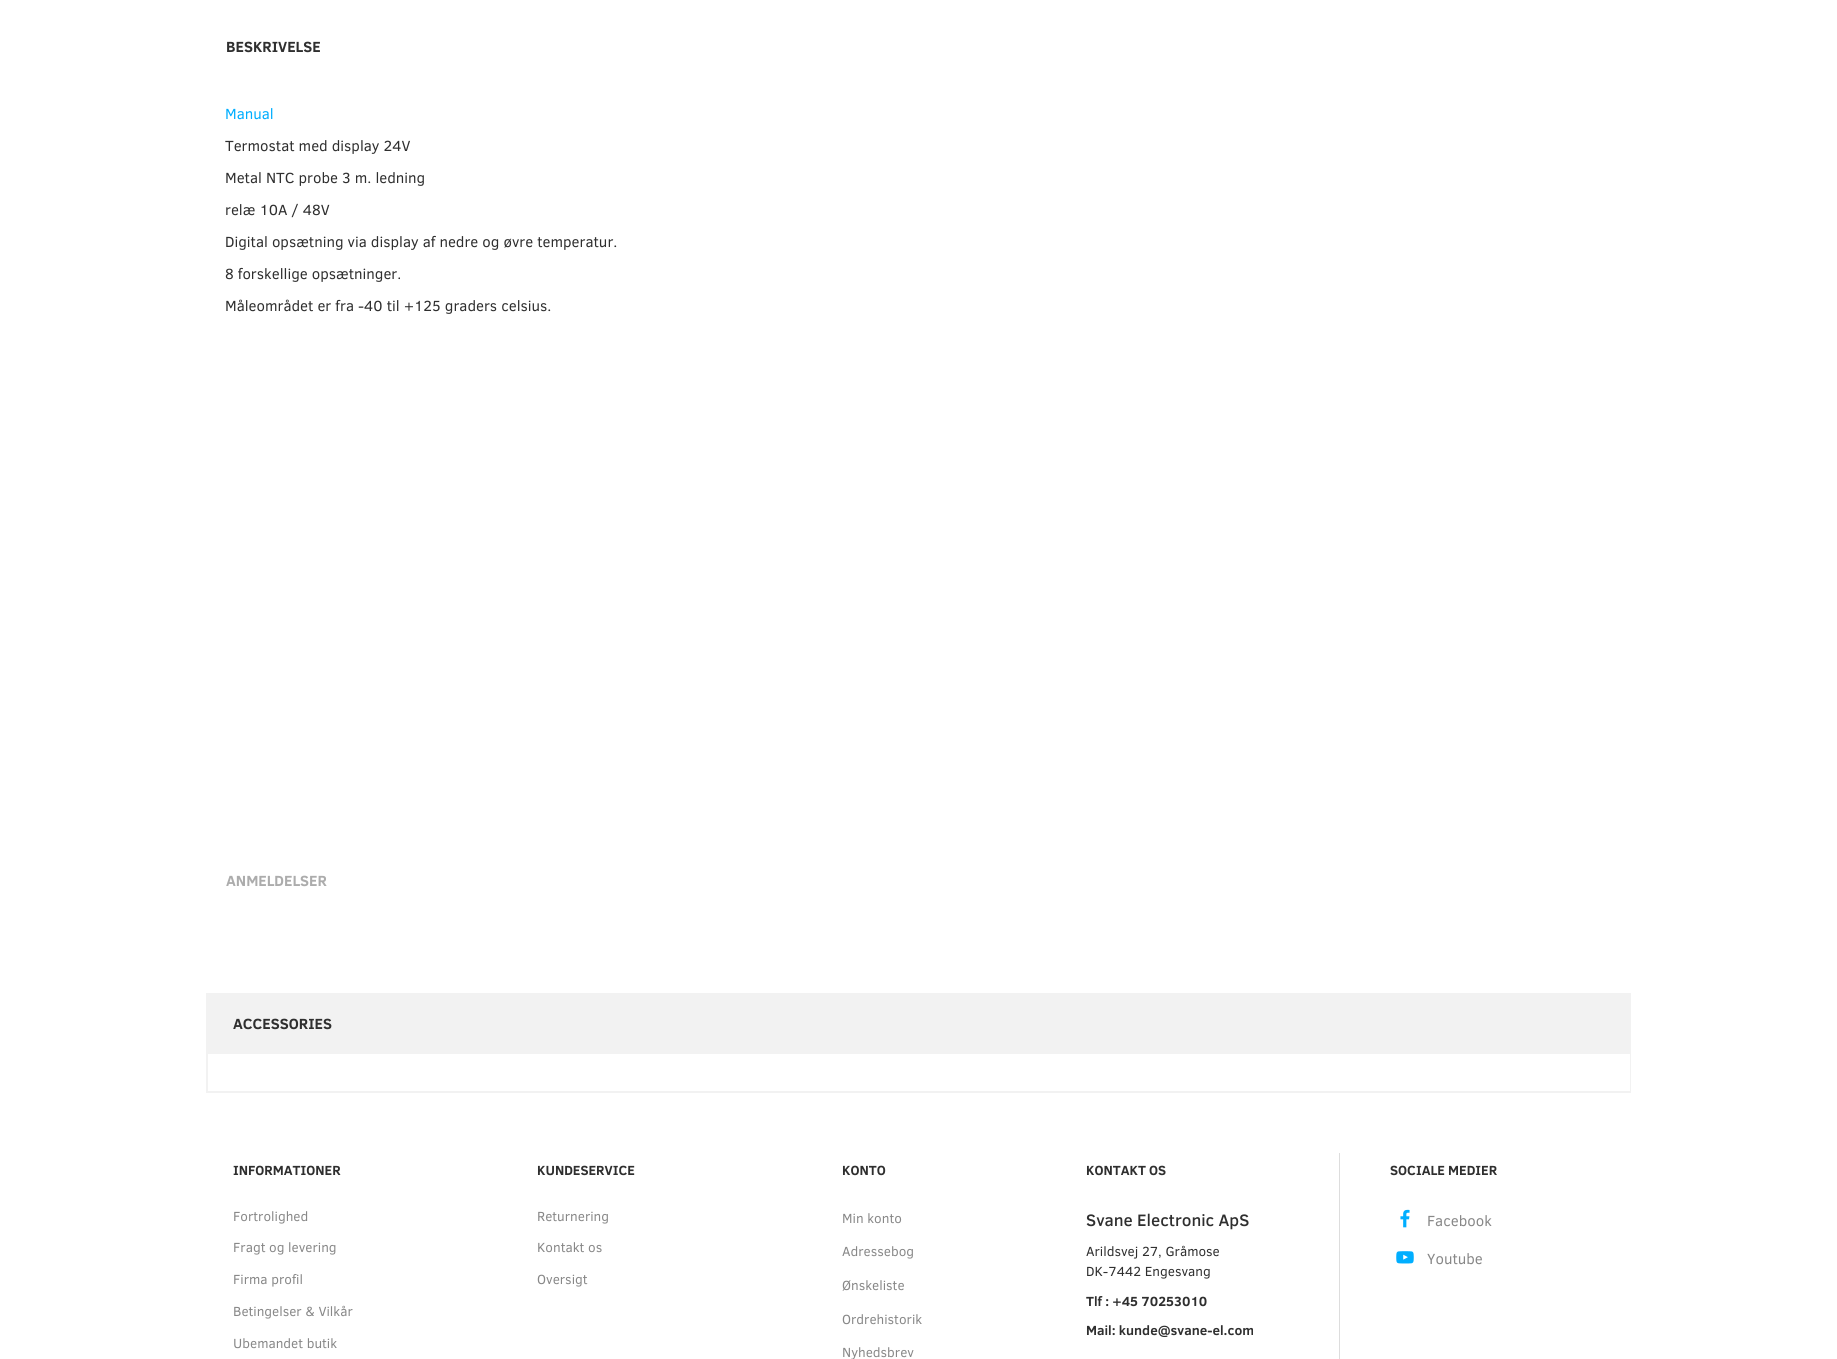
#include <cairo.h>
#include <math.h>
#include <stddef.h>


static void rgb(cairo_t *cr, int r, int g, int b)
{
	cairo_set_source_rgb(cr, r / 255.0, g / 255.0, b / 255.0);
}

static void face(cairo_t *cr, const char *family, double size, int italic, int bold)
{
	cairo_select_font_face(cr, family, italic ? CAIRO_FONT_SLANT_ITALIC : CAIRO_FONT_SLANT_NORMAL,
		bold ? CAIRO_FONT_WEIGHT_BOLD : CAIRO_FONT_WEIGHT_NORMAL);
	cairo_set_font_size(cr, size);
}

static void label(cairo_t *cr, double x, double y, const char *s)
{
	cairo_move_to(cr, x, y);
	cairo_show_text(cr, s);
}

static void rect(cairo_t *cr, double x, double y, double w, double h)
{
	cairo_rectangle(cr, x, y, w, h);
	cairo_fill(cr);
}

static void image(cairo_t *cr, const char *path, double x, double y, double w, double h)
{
	cairo_surface_t *image = cairo_image_surface_create_from_png(path);
	cairo_save(cr);
	cairo_set_source_surface(cr, image, x, y);
	cairo_rectangle(cr, x, y, w, h);
	cairo_fill(cr);
	cairo_restore(cr);
	cairo_surface_destroy(image);
}

static void draw(cairo_t *cr) {
	rgb(cr, 255, 255, 255);
	cairo_paint(cr);
	face(cr, "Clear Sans", 15, 0, 1);
	rgb(cr, 47, 47, 47);
	label(cr, 226, 52, "BESKRIVELSE");
	face(cr, "Clear Sans", 15, 0, 0);
	rgb(cr, 0, 174, 255);
	label(cr, 225, 119, "Manual");
	rgb(cr, 47, 47, 47);
	label(cr, 225, 151, "Termostat med display 24V");
	label(cr, 225, 183, "Metal NTC probe 3 m. ledning");
	label(cr, 225, 215, "relæ 10A / 48V");
	label(cr, 225, 247, "Digital opsætning via display af nedre og øvre temperatur.");
	label(cr, 225, 279, "8 forskellige opsætninger.");
	label(cr, 225, 311, "Måleområdet er fra -40 til +125 graders celsius.");
	face(cr, "Clear Sans", 15, 0, 1);
	rgb(cr, 172, 172, 172);
	label(cr, 226, 886, "ANMELDELSER");
	rgb(cr, 242, 242, 242);
	rect(cr, 206, 993, 1425, 100);
	rgb(cr, 47, 47, 47);
	label(cr, 233, 1029, "ACCESSORIES");
	rgb(cr, 255, 255, 255);
	rect(cr, 208, 1054, 1422, 37);
	face(cr, "Clear Sans", 13.5, 0, 1);
	rgb(cr, 47, 47, 47);
	label(cr, 233, 1175, "INFORMATIONER");
	face(cr, "Clear Sans", 13.5, 0, 0);
	rgb(cr, 136, 136, 136);
	label(cr, 233, 1221, "Fortrolighed");
	label(cr, 233, 1252, "Fragt og levering");
	label(cr, 233, 1284, "Firma profil");
	label(cr, 233, 1316, "Betingelser & Vilkår");
	label(cr, 233, 1348, "Ubemandet butik");
	face(cr, "Clear Sans", 13.5, 0, 1);
	rgb(cr, 47, 47, 47);
	label(cr, 537, 1175, "KUNDESERVICE");
	face(cr, "Clear Sans", 13.5, 0, 0);
	rgb(cr, 136, 136, 136);
	label(cr, 537, 1221, "Returnering");
	label(cr, 537, 1252, "Kontakt os");
	label(cr, 537, 1284, "Oversigt");
	face(cr, "Clear Sans", 13.5, 0, 1);
	rgb(cr, 47, 47, 47);
	label(cr, 842, 1175, "KONTO");
	face(cr, "Clear Sans", 13.5, 0, 0);
	rgb(cr, 136, 136, 136);
	label(cr, 842, 1223, "Min konto");
	label(cr, 842, 1256, "Adressebog");
	label(cr, 842, 1290, "Ønskeliste");
	label(cr, 842, 1324, "Ordrehistorik");
	label(cr, 842, 1357, "Nyhedsbrev");
	face(cr, "Clear Sans", 13.5, 0, 1);
	rgb(cr, 47, 47, 47);
	label(cr, 1086, 1175, "KONTAKT OS");
	face(cr, "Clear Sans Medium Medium", 16.9, 0, 0);
	label(cr, 1086, 1226, "Svane Electronic ApS");
	face(cr, "Clear Sans", 13.5, 0, 0);
	label(cr, 1086, 1256, "Arildsvej 27, Gråmose");
	label(cr, 1086, 1276, "DK-7442 Engesvang");
	face(cr, "Clear Sans", 13.5, 0, 1);
	label(cr, 1086, 1306, "Tlf : +45 70253010");
	label(cr, 1086, 1335, "Mail: kunde@svane-el.com");
	rgb(cr, 221, 221, 221);
	rect(cr, 1339, 1153, 1, 206);
	rgb(cr, 47, 47, 47);
	label(cr, 1390, 1175, "SOCIALE MEDIER");
	image(cr, "image0.png", 1400, 1209, 10, 19);
	face(cr, "Clear Sans", 15, 0, 0);
	rgb(cr, 136, 136, 136);
	label(cr, 1427, 1226, "Facebook");
	image(cr, "image1.png", 1396, 1251, 18, 13);
	label(cr, 1427, 1264, "Youtube");
}

int main(void) {
	cairo_surface_t *surface = cairo_image_surface_create(CAIRO_FORMAT_RGB24, 1837, 1359);
	cairo_t *cr = cairo_create(surface);
	cairo_font_options_t *options = cairo_font_options_create();
	cairo_font_options_set_hint_metrics(options, CAIRO_HINT_METRICS_OFF);
	cairo_font_options_set_hint_style(options, CAIRO_HINT_STYLE_NONE);
	cairo_set_font_options(cr, options);
	cairo_set_miter_limit(cr, 4);
	draw(cr);
	cairo_surface_write_to_png(surface, "render.png");
	cairo_font_options_destroy(options);
	cairo_destroy(cr);
	cairo_surface_destroy(surface);
	return 0;
}
